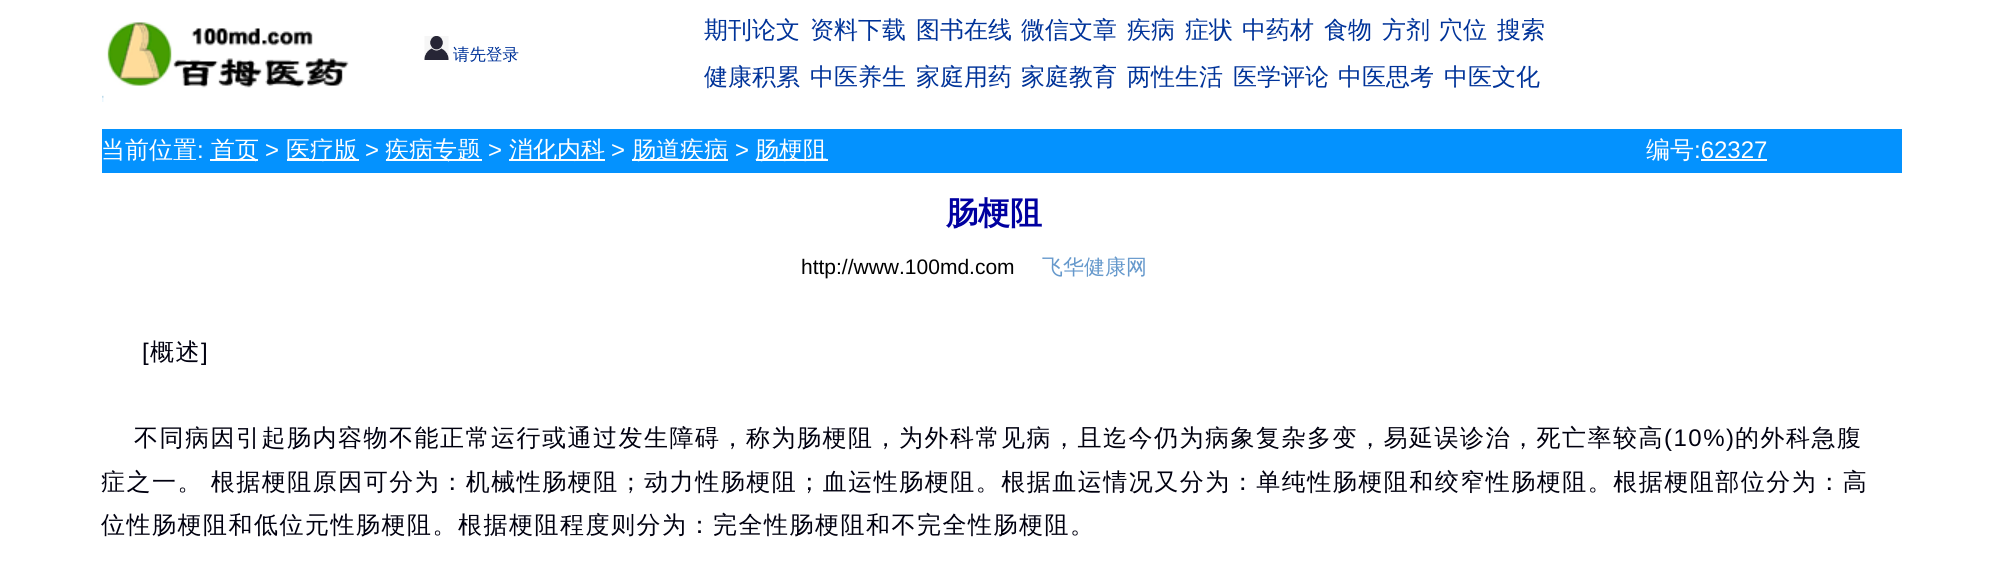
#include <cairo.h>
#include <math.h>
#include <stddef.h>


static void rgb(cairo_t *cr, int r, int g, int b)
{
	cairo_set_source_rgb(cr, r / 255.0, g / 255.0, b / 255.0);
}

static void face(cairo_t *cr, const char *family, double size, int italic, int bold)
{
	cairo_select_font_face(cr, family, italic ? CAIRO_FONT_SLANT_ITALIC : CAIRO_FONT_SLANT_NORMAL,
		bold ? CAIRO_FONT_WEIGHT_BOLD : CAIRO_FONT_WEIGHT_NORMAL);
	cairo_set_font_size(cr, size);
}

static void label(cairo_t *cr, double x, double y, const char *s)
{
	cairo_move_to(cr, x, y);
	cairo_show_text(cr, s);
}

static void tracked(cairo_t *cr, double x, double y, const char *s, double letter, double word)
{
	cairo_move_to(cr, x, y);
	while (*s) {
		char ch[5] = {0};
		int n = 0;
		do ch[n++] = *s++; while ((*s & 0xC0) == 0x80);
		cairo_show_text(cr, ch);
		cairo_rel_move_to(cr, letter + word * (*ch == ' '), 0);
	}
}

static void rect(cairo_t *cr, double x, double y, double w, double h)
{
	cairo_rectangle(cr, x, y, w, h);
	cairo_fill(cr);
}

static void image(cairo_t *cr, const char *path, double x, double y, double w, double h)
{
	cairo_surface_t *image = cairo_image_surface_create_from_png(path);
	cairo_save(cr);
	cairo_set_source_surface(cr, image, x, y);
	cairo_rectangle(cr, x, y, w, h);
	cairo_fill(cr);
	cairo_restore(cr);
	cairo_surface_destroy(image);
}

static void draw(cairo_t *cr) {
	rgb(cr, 255, 255, 255);
	cairo_paint(cr);
	image(cr, "image0.png", 102, 22, 247, 80);
	image(cr, "image1.png", 424, 36, 25, 24);
	face(cr, "WenQuanYi Zen Hei Medium", 16.5, 0, 0);
	rgb(cr, 0, 51, 153);
	label(cr, 453, 60, "请先登录");
	face(cr, "WenQuanYi Zen Hei Medium", 24, 0, 0);
	label(cr, 704, 38, "期刊论文");
	label(cr, 810, 38, "资料下载");
	label(cr, 916, 38, "图书在线");
	label(cr, 1021, 38, "微信文章");
	label(cr, 1127, 38, "疾病");
	label(cr, 1185, 38, "症状");
	label(cr, 1242, 38, "中药材");
	label(cr, 1324, 38, "食物");
	label(cr, 1382, 38, "方剂");
	label(cr, 1439, 38, "穴位");
	label(cr, 1497, 38, "搜索");
	label(cr, 704, 85, "健康积累");
	label(cr, 810, 85, "中医养生");
	label(cr, 916, 85, "家庭用药");
	label(cr, 1021, 85, "家庭教育");
	label(cr, 1127, 85, "两性生活");
	label(cr, 1233, 85, "医学评论");
	label(cr, 1338, 85, "中医思考");
	label(cr, 1444, 85, "中医文化");
	rgb(cr, 4, 146, 254);
	rect(cr, 102, 129, 1800, 44);
	rgb(cr, 255, 255, 255);
	label(cr, 101, 158, "当前位置");
	face(cr, "Liberation Sans", 24, 0, 0);
	label(cr, 197, 158, ":");
	rect(cr, 210, 159, 48, 2);
	face(cr, "WenQuanYi Zen Hei Medium", 24, 0, 0);
	label(cr, 211, 158, "首页");
	face(cr, "Liberation Sans", 24, 0, 0);
	label(cr, 265, 158, ">");
	rect(cr, 287, 159, 72, 2);
	face(cr, "WenQuanYi Zen Hei Medium", 24, 0, 0);
	label(cr, 286, 158, "医疗版");
	face(cr, "Liberation Sans", 24, 0, 0);
	label(cr, 365, 158, ">");
	rect(cr, 386, 159, 96, 2);
	face(cr, "WenQuanYi Zen Hei Medium", 24, 0, 0);
	label(cr, 385, 158, "疾病专题");
	face(cr, "Liberation Sans", 24, 0, 0);
	label(cr, 488, 158, ">");
	rect(cr, 509, 159, 96, 2);
	face(cr, "WenQuanYi Zen Hei Medium", 24, 0, 0);
	label(cr, 509, 158, "消化内科");
	face(cr, "Liberation Sans", 24, 0, 0);
	label(cr, 611, 158, ">");
	rect(cr, 632, 159, 96, 2);
	face(cr, "WenQuanYi Zen Hei Medium", 24, 0, 0);
	label(cr, 632, 158, "肠道疾病");
	face(cr, "Liberation Sans", 24, 0, 0);
	label(cr, 735, 158, ">");
	rect(cr, 756, 159, 72, 2);
	face(cr, "WenQuanYi Zen Hei Medium", 24, 0, 0);
	label(cr, 755, 158, "肠梗阻");
	label(cr, 1646, 158, "编号");
	face(cr, "Liberation Sans", 24, 0, 0);
	label(cr, 1694, 158, ":62327");
	rect(cr, 1701, 159, 66, 2);
	face(cr, "WenQuanYi Zen Hei", 32, 0, 1);
	rgb(cr, 0, 0, 160);
	label(cr, 946, 224, "肠梗阻");
	face(cr, "Liberation Sans", 21, 0, 0);
	rgb(cr, 0, 0, 0);
	label(cr, 801, 274, "http://www.100md.com");
	face(cr, "WenQuanYi Zen Hei Medium", 21, 0, 0);
	rgb(cr, 102, 153, 204);
	label(cr, 1042, 274, "飞华健康网");
	face(cr, "Liberation Sans", 24, 0, 0);
	rgb(cr, 0, 0, 15);
	tracked(cr, 142, 360, "[", 1.5, 0);
	face(cr, "WenQuanYi Zen Hei Medium", 24, 0, 0);
	tracked(cr, 150, 360, "概述", 1.5, 0);
	face(cr, "Liberation Sans", 24, 0, 0);
	tracked(cr, 201, 360, "]", 1.5, 0);
	face(cr, "WenQuanYi Zen Hei Medium", 24, 0, 0);
	tracked(cr, 134, 446, "不同病因引起肠内容物不能正常运行或通过发生障碍，称为肠梗阻，为外科常见病，且迄今仍为病象复杂多变，易延误诊治，死亡率较高", 1.5, 0);
	face(cr, "Liberation Sans", 24, 0, 0);
	tracked(cr, 1664, 446, "(10%)", 1.5, 0);
	face(cr, "WenQuanYi Zen Hei Medium", 24, 0, 0);
	tracked(cr, 1735, 446, "的外科急腹", 1.5, 0);
	tracked(cr, 101, 490, "症之一。 根据梗阻原因可分为：机械性肠梗阻；动力性肠梗阻；血运性肠梗阻。根据血运情况又分为：单纯性肠梗阻和绞窄性肠梗阻。根据梗阻部位分为：高", 1.5, -1);
	tracked(cr, 101, 533, "位性肠梗阻和低位元性肠梗阻。根据梗阻程度则分为：完全性肠梗阻和不完全性肠梗阻。", 1.5, 0);
}

int main(void) {
	cairo_surface_t *surface = cairo_image_surface_create(CAIRO_FORMAT_RGB24, 2002, 584);
	cairo_t *cr = cairo_create(surface);
	cairo_font_options_t *options = cairo_font_options_create();
	cairo_font_options_set_hint_metrics(options, CAIRO_HINT_METRICS_OFF);
	cairo_font_options_set_hint_style(options, CAIRO_HINT_STYLE_NONE);
	cairo_set_font_options(cr, options);
	cairo_set_miter_limit(cr, 4);
	draw(cr);
	cairo_surface_write_to_png(surface, "render.png");
	cairo_font_options_destroy(options);
	cairo_destroy(cr);
	cairo_surface_destroy(surface);
	return 0;
}
